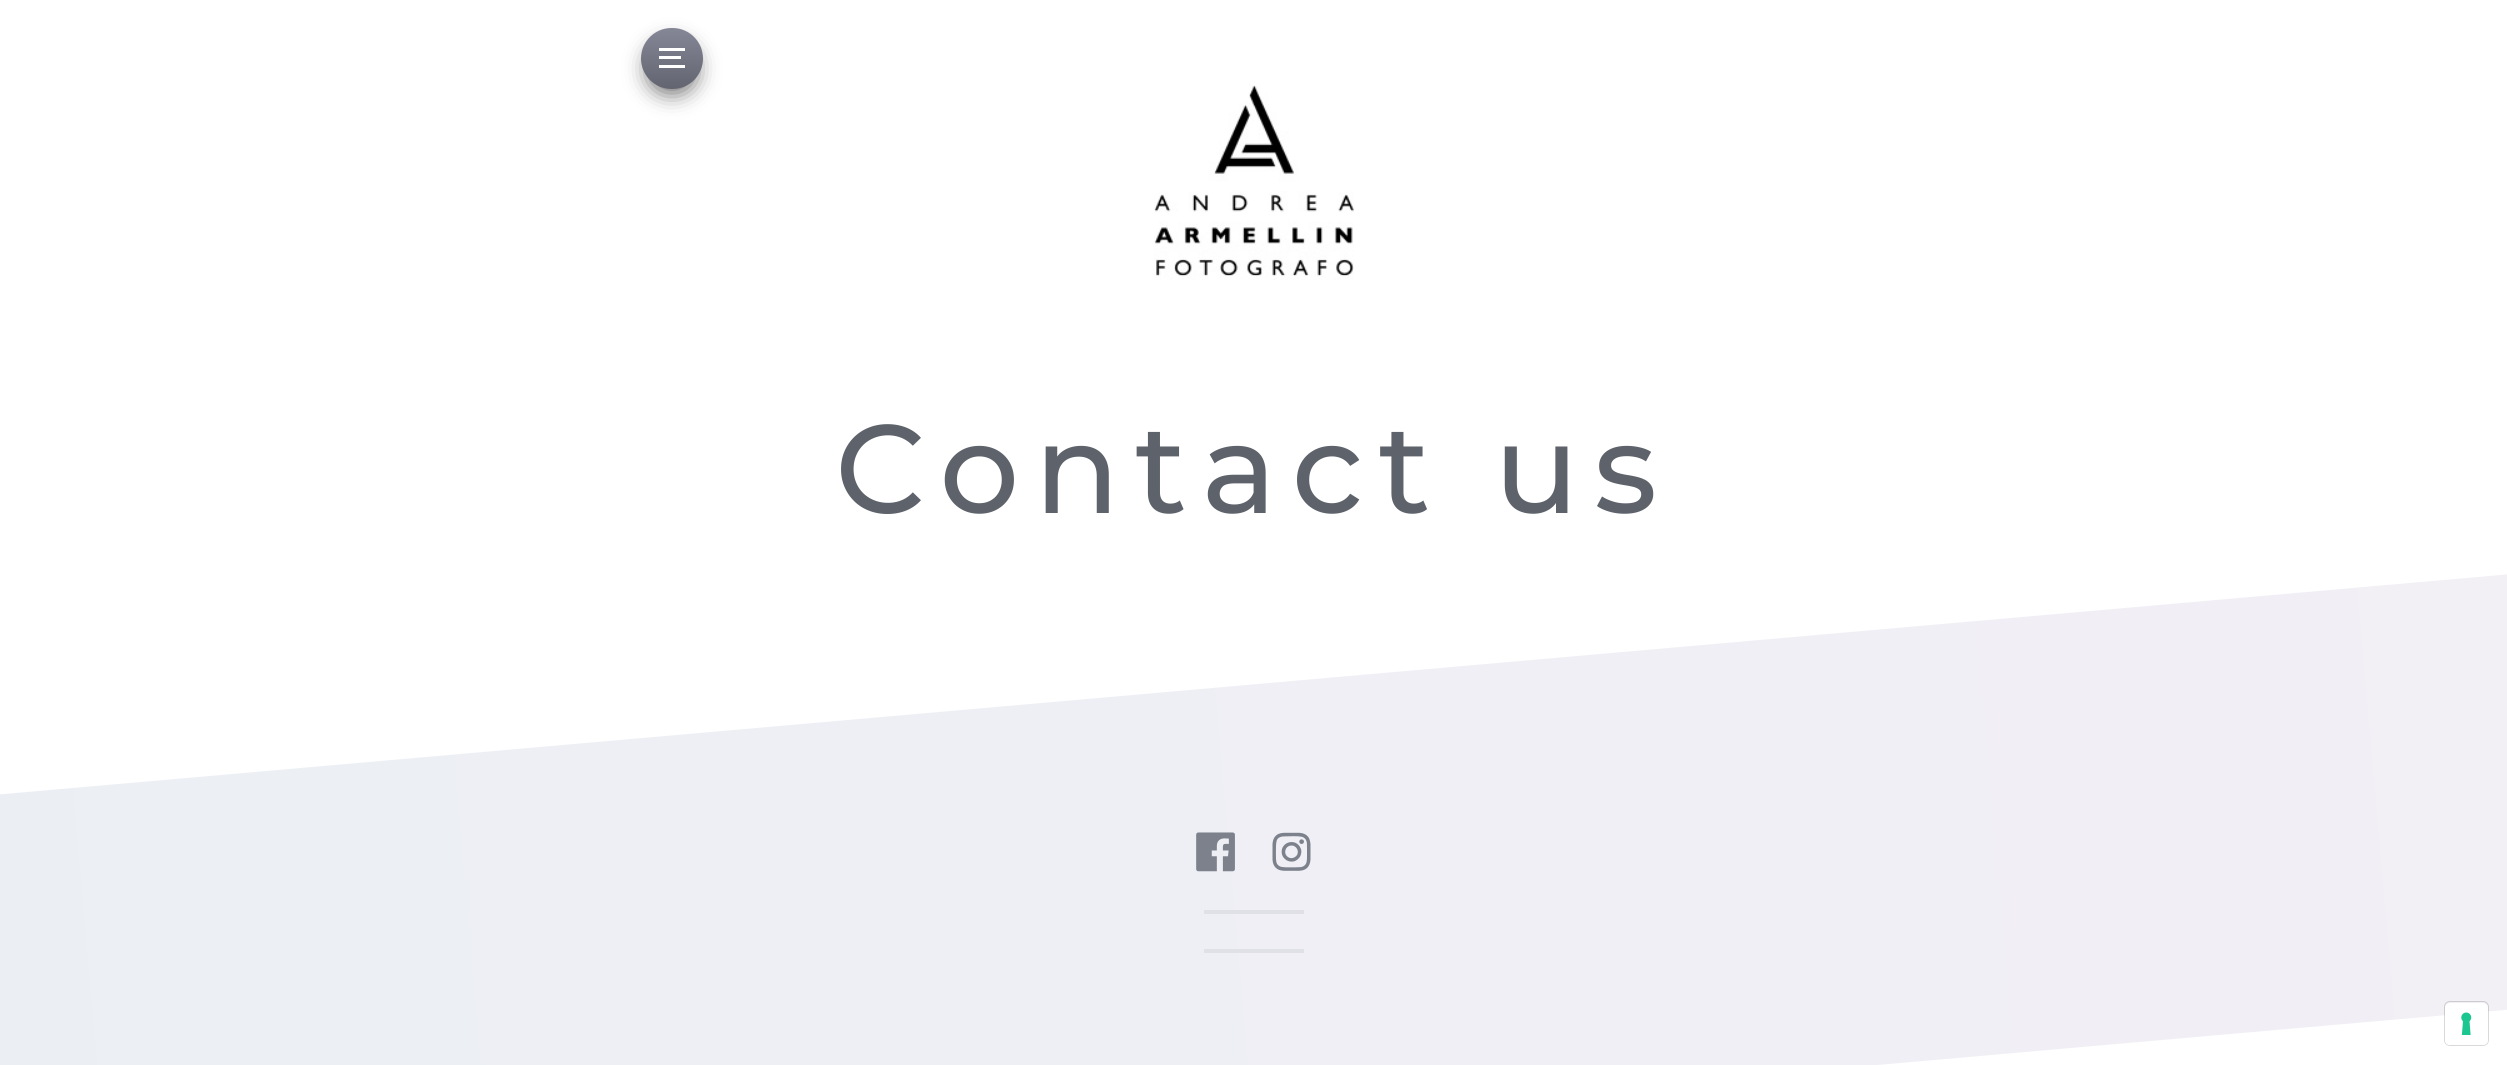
#include <cairo.h>
#include <math.h>
#include <stddef.h>


static void rgb(cairo_t *cr, int r, int g, int b)
{
	cairo_set_source_rgb(cr, r / 255.0, g / 255.0, b / 255.0);
}

static void face(cairo_t *cr, const char *family, double size, int italic, int bold)
{
	cairo_select_font_face(cr, family, italic ? CAIRO_FONT_SLANT_ITALIC : CAIRO_FONT_SLANT_NORMAL,
		bold ? CAIRO_FONT_WEIGHT_BOLD : CAIRO_FONT_WEIGHT_NORMAL);
	cairo_set_font_size(cr, size);
}

static void tracked(cairo_t *cr, double x, double y, const char *s, double letter, double word)
{
	cairo_move_to(cr, x, y);
	while (*s) {
		char ch[5] = {0};
		int n = 0;
		do ch[n++] = *s++; while ((*s & 0xC0) == 0x80);
		cairo_show_text(cr, ch);
		cairo_rel_move_to(cr, letter + word * (*ch == ' '), 0);
	}
}

static void rect(cairo_t *cr, double x, double y, double w, double h)
{
	cairo_rectangle(cr, x, y, w, h);
	cairo_fill(cr);
}

static void rrect(cairo_t *cr, double x, double y, double w, double h, double r)
{
	cairo_new_sub_path(cr);
	cairo_arc(cr, x + w - r, y + h - r, r, 0, M_PI / 2);
	cairo_arc(cr, x + r, y + h - r, r, M_PI / 2, M_PI);
	cairo_arc(cr, x + r, y + r, r, M_PI, 1.5 * M_PI);
	cairo_arc(cr, x + w - r, y + r, r, 1.5 * M_PI, 2 * M_PI);
	cairo_close_path(cr);
}

static void soft_shadow(cairo_t *cr, double x, double y, double w, double h, double r, double blur, double alpha)
{
	cairo_push_group_with_content(cr, CAIRO_CONTENT_ALPHA);
	cairo_set_operator(cr, CAIRO_OPERATOR_SOURCE);
	for (int i = 15; i >= -15 && fmin(w, h) + blur * i / 3 > 0; i -= 2) {
		double e = blur * i / 6;
		cairo_set_source_rgba(cr, 0, 0, 0, alpha * erfc((i - 1) / 8.5) / 2);
		rrect(cr, x - e, y - e, w + 2 * e, h + 2 * e, fmax(0, fmin(r + e + blur * .6, fmin(w, h) / 2 + e)));
		cairo_fill(cr);
	}
	cairo_pattern_t *soft = cairo_pop_group(cr);
	cairo_mask(cr, soft);
	cairo_pattern_destroy(soft);
}

static void image(cairo_t *cr, const char *path, double x, double y, double w, double h)
{
	cairo_surface_t *image = cairo_image_surface_create_from_png(path);
	cairo_save(cr);
	cairo_set_source_surface(cr, image, x, y);
	cairo_rectangle(cr, x, y, w, h);
	cairo_fill(cr);
	cairo_restore(cr);
	cairo_surface_destroy(image);
}

static void draw(cairo_t *cr) {
	cairo_pattern_t *gradient;
	rgb(cr, 255, 255, 255);
	cairo_paint(cr);
	rgb(cr, 0, 0, 0);
	soft_shadow(cr, 648, 44, 48, 49, 24, 11, 0.6);
	gradient = cairo_pattern_create_linear(672, 27, 672, 89);
	cairo_pattern_add_color_stop_rgba(gradient, 0, 0.525, 0.533, 0.596, 1);
	cairo_pattern_add_color_stop_rgba(gradient, 1, 0.384, 0.392, 0.439, 1);
	cairo_set_source(cr, gradient);
	cairo_pattern_destroy(gradient);
	rrect(cr, 641, 28, 62, 61, 30.5);
	cairo_fill(cr);
	rgb(cr, 255, 255, 255);
	rect(cr, 659, 48, 26, 3);
	rect(cr, 659, 56, 22, 3);
	rect(cr, 659, 65, 26, 3);
	image(cr, "image0.png", 1154, 84, 200, 196);
	face(cr, "Montserrat Medium", 125.5, 0, 0);
	rgb(cr, 94, 99, 107);
	tracked(cr, 835, 513, "Contact us", 15, 0);
	gradient = cairo_pattern_create_linear(-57, 1017, 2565, 787);
	cairo_pattern_add_color_stop_rgba(gradient, 0, 0.922, 0.937, 0.957, 1);
	cairo_pattern_add_color_stop_rgba(gradient, 1, 0.949, 0.937, 0.961, 1);
	cairo_set_source(cr, gradient);
	cairo_pattern_destroy(gradient);
	cairo_new_path(cr);
	cairo_move_to(cr, -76, 801);
	cairo_line_to(cr, 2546, 571);
	cairo_line_to(cr, 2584, 1003);
	cairo_line_to(cr, -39, 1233);
	cairo_close_path(cr);
	cairo_fill(cr);
	image(cr, "image1.png", 1196, 832, 39, 40);
	image(cr, "image2.png", 1272, 832, 39, 39);
	rgb(cr, 223, 225, 230);
	rect(cr, 1204, 910, 100, 4);
	rect(cr, 1204, 949, 100, 4);
	rrect(cr, 2444.5, 1001.5, 44, 44, 5.5);
	cairo_set_source_rgba(cr, 0, 0, 0, 0.15);
	cairo_set_line_width(cr, 1);
	cairo_stroke(cr);
	rgb(cr, 255, 255, 255);
	rrect(cr, 2445, 1003, 43, 42, 5);
	cairo_fill(cr);
	image(cr, "image3.png", 2461, 1012, 11, 23);
}

int main(void) {
	cairo_surface_t *surface = cairo_image_surface_create(CAIRO_FORMAT_RGB24, 2507, 1065);
	cairo_t *cr = cairo_create(surface);
	cairo_font_options_t *options = cairo_font_options_create();
	cairo_font_options_set_hint_metrics(options, CAIRO_HINT_METRICS_OFF);
	cairo_font_options_set_hint_style(options, CAIRO_HINT_STYLE_NONE);
	cairo_set_font_options(cr, options);
	cairo_set_miter_limit(cr, 4);
	draw(cr);
	cairo_surface_write_to_png(surface, "render.png");
	cairo_font_options_destroy(options);
	cairo_destroy(cr);
	cairo_surface_destroy(surface);
	return 0;
}
